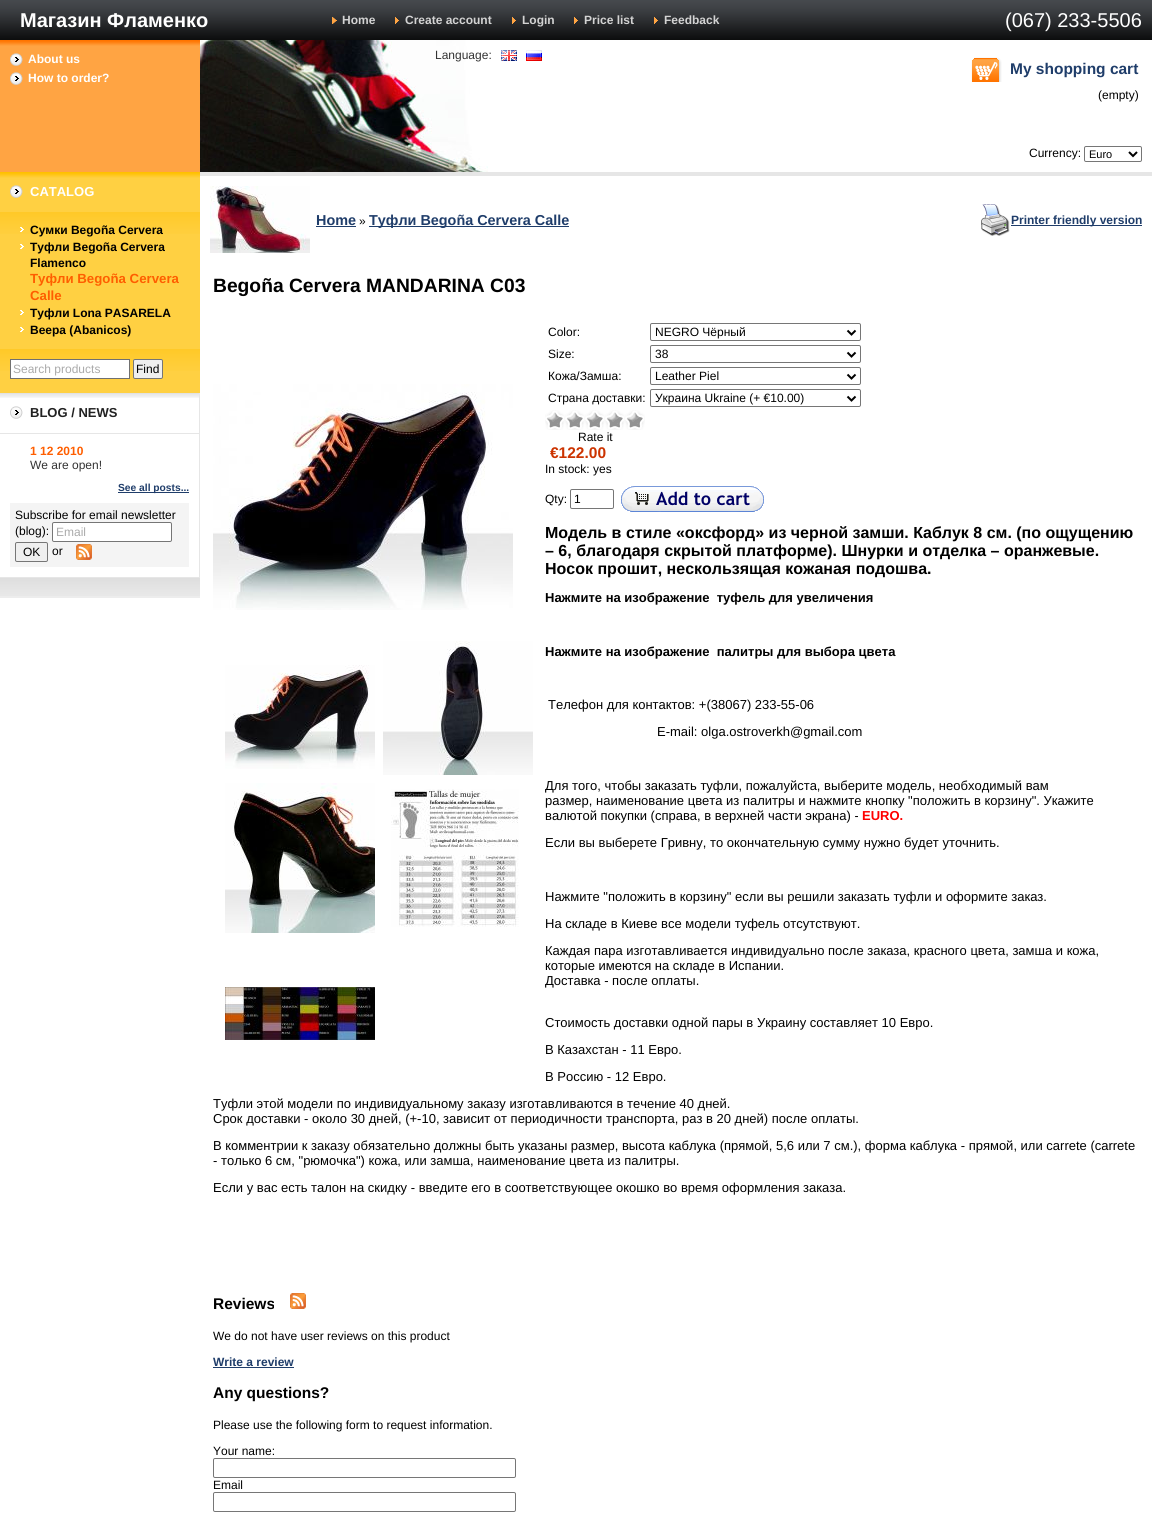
#include <cairo.h>
#include <math.h>
#include <stddef.h>


static void rgb(cairo_t *cr, int r, int g, int b)
{
	cairo_set_source_rgb(cr, r / 255.0, g / 255.0, b / 255.0);
}

static void face(cairo_t *cr, const char *family, double size, int italic, int bold)
{
	cairo_select_font_face(cr, family, italic ? CAIRO_FONT_SLANT_ITALIC : CAIRO_FONT_SLANT_NORMAL,
		bold ? CAIRO_FONT_WEIGHT_BOLD : CAIRO_FONT_WEIGHT_NORMAL);
	cairo_set_font_size(cr, size);
}

static void label(cairo_t *cr, double x, double y, const char *s)
{
	cairo_move_to(cr, x, y);
	cairo_show_text(cr, s);
}

static void rect(cairo_t *cr, double x, double y, double w, double h)
{
	cairo_rectangle(cr, x, y, w, h);
	cairo_fill(cr);
}

static void rrect(cairo_t *cr, double x, double y, double w, double h, double r)
{
	cairo_new_sub_path(cr);
	cairo_arc(cr, x + w - r, y + h - r, r, 0, M_PI / 2);
	cairo_arc(cr, x + r, y + h - r, r, M_PI / 2, M_PI);
	cairo_arc(cr, x + r, y + r, r, M_PI, 1.5 * M_PI);
	cairo_arc(cr, x + w - r, y + r, r, 1.5 * M_PI, 2 * M_PI);
	cairo_close_path(cr);
}

static void image(cairo_t *cr, const char *path, double x, double y, double w, double h)
{
	cairo_surface_t *image = cairo_image_surface_create_from_png(path);
	cairo_save(cr);
	cairo_set_source_surface(cr, image, x, y);
	cairo_rectangle(cr, x, y, w, h);
	cairo_fill(cr);
	cairo_restore(cr);
	cairo_surface_destroy(image);
}

static void draw(cairo_t *cr) {
	rgb(cr, 255, 255, 255);
	cairo_paint(cr);
	image(cr, "image0.png", 0, 0, 332, 40);
	face(cr, "Liberation Sans", 20, 0, 1);
	rgb(cr, 255, 255, 255);
	label(cr, 20, 27, "Магазин Фламенко");
	image(cr, "image1.png", 332, 0, 592, 40);
	image(cr, "image2.png", 332, 17, 5, 7);
	face(cr, "Liberation Sans", 12, 0, 1);
	rgb(cr, 211, 211, 211);
	label(cr, 342, 24, "Home");
	image(cr, "image3.png", 395, 17, 4, 7);
	label(cr, 405, 24, "Create account");
	image(cr, "image3.png", 512, 17, 4, 7);
	label(cr, 522, 24, "Login");
	image(cr, "image3.png", 574, 17, 4, 7);
	label(cr, 584, 24, "Price list");
	image(cr, "image3.png", 654, 17, 4, 7);
	label(cr, 664, 24, "Feedback");
	image(cr, "image4.png", 924, 0, 228, 40);
	face(cr, "Liberation Sans", 20, 0, 0);
	rgb(cr, 255, 255, 255);
	label(cr, 1005, 27, "(067) 233-5506");
	rgb(cr, 255, 164, 67);
	rect(cr, 0, 46, 200, 126);
	image(cr, "image5.png", 0, 40, 200, 6);
	image(cr, "image6.png", 10, 53, 13, 13);
	face(cr, "Liberation Sans", 12, 0, 1);
	rgb(cr, 255, 255, 255);
	label(cr, 28, 63, "About us");
	image(cr, "image6.png", 10, 72, 13, 13);
	label(cr, 28, 82, "How to order?");
	image(cr, "image7.png", 200, 40, 288, 132);
	face(cr, "Liberation Sans", 12, 0, 0);
	rgb(cr, 51, 51, 51);
	label(cr, 435, 59, "Language:");
	image(cr, "image8.png", 501, 50, 16, 11);
	image(cr, "image9.png", 526, 50, 16, 11);
	image(cr, "image10.png", 971, 57, 31, 25);
	face(cr, "Liberation Sans", 15.5, 0, 1);
	rgb(cr, 31, 61, 106);
	label(cr, 1010, 74, "My shopping cart");
	face(cr, "Liberation Sans", 12, 0, 0);
	rgb(cr, 0, 0, 0);
	label(cr, 1098, 99, "(empty)");
	label(cr, 1029, 157, "Currency:");
	rrect(cr, 1084.5, 146.5, 57, 15, 1.5);
	rgb(cr, 118, 118, 118);
	cairo_set_line_width(cr, 1);
	cairo_stroke(cr);
	cairo_new_path(cr);
	cairo_move_to(cr, 1129, 152);
	cairo_line_to(cr, 1133, 156);
	cairo_line_to(cr, 1137, 152);
	rgb(cr, 0, 0, 0);
	cairo_set_line_width(cr, 2);
	cairo_stroke(cr);
	face(cr, "Liberation Sans", 11, 0, 0);
	label(cr, 1089, 158, "Euro");
	rgb(cr, 255, 208, 66);
	rect(cr, 0, 178, 200, 34);
	image(cr, "image11.png", 0, 172, 200, 6);
	image(cr, "image12.png", 10, 185, 13, 13);
	face(cr, "Liberation Sans", 13, 0, 1);
	rgb(cr, 255, 255, 255);
	label(cr, 30, 196, "CATALOG");
	rgb(cr, 255, 208, 66);
	rect(cr, 0, 234, 200, 115);
	image(cr, "image13.png", 0, 212, 200, 22);
	image(cr, "image14.png", 20, 227, 4, 5);
	face(cr, "Liberation Sans", 12, 0, 1);
	rgb(cr, 0, 0, 0);
	label(cr, 30, 234, "Сумки Begoña Cervera");
	image(cr, "image15.png", 20, 244, 4, 5);
	label(cr, 30, 251, "Туфли Begoña Cervera");
	label(cr, 30, 267, "Flamenco");
	face(cr, "Liberation Sans", 13.25, 0, 1);
	rgb(cr, 255, 94, 0);
	label(cr, 30, 283, "Туфли Begoña Cervera");
	label(cr, 30, 300, "Calle");
	image(cr, "image15.png", 20, 310, 4, 5);
	face(cr, "Liberation Sans", 12, 0, 1);
	rgb(cr, 0, 0, 0);
	label(cr, 30, 317, "Туфли Lona PASARELA");
	image(cr, "image15.png", 20, 327, 4, 5);
	label(cr, 30, 334, "Веера (Abanicos)");
	rgb(cr, 255, 208, 66);
	rect(cr, 0, 371, 200, 22);
	image(cr, "image13.png", 0, 349, 200, 22);
	rgb(cr, 255, 255, 255);
	cairo_rectangle(cr, 10.5, 359.5, 119, 19);
	cairo_fill_preserve(cr);
	rgb(cr, 112, 112, 112);
	cairo_set_line_width(cr, 1);
	cairo_stroke(cr);
	face(cr, "Liberation Sans", 12, 0, 0);
	rgb(cr, 170, 170, 170);
	label(cr, 13, 373, "Search products");
	rgb(cr, 239, 239, 239);
	rrect(cr, 133.5, 359.5, 29, 19, 1.5);
	cairo_fill_preserve(cr);
	rgb(cr, 118, 118, 118);
	cairo_stroke(cr);
	rgb(cr, 0, 0, 0);
	label(cr, 136, 373, "Find");
	image(cr, "image16.png", 0, 393, 199, 5);
	rgb(cr, 230, 230, 230);
	rect(cr, 199, 393, 1, 185);
	rect(cr, 0, 433, 200, 1);
	image(cr, "image17.png", 10, 406, 13, 13);
	face(cr, "Liberation Sans", 13, 0, 1);
	rgb(cr, 34, 34, 34);
	label(cr, 30, 417, "BLOG / NEWS");
	rgb(cr, 230, 230, 230);
	rect(cr, 0, 577, 200, 1);
	face(cr, "Liberation Sans", 12, 0, 1);
	rgb(cr, 255, 94, 0);
	label(cr, 30, 455, "1 12 2010");
	face(cr, "Liberation Sans", 12, 0, 0);
	rgb(cr, 51, 51, 51);
	label(cr, 30, 469, "We are open!");
	rgb(cr, 31, 61, 106);
	rect(cr, 118, 492, 71, 1);
	face(cr, "Liberation Sans", 10.25, 0, 1);
	label(cr, 118, 491, "See all posts...");
	rgb(cr, 244, 244, 244);
	rect(cr, 10, 503, 179, 64);
	face(cr, "Liberation Sans", 12, 0, 0);
	rgb(cr, 0, 0, 0);
	label(cr, 15, 519, "Subscribe for email newsletter");
	label(cr, 15, 535, "(blog):");
	rgb(cr, 255, 255, 255);
	rrect(cr, 52.5, 522.5, 119, 19, 1.5);
	cairo_fill_preserve(cr);
	rgb(cr, 118, 118, 118);
	cairo_stroke(cr);
	rgb(cr, 170, 170, 170);
	label(cr, 56, 536, "Email");
	rgb(cr, 239, 239, 239);
	rrect(cr, 15.5, 542.5, 32, 19, 1.5);
	cairo_fill_preserve(cr);
	rgb(cr, 118, 118, 118);
	cairo_stroke(cr);
	rgb(cr, 0, 0, 0);
	label(cr, 23, 556, "OK");
	label(cr, 52, 555, "or");
	image(cr, "image18.png", 76, 544, 16, 16);
	rgb(cr, 237, 237, 237);
	rect(cr, 0, 596, 200, 2);
	image(cr, "image19.png", 0, 578, 200, 18);
	rgb(cr, 230, 230, 230);
	rect(cr, 200, 172, 952, 4);
	image(cr, "image20.png", 210, 186, 100, 67);
	face(cr, "Liberation Sans", 14.4, 0, 1);
	rgb(cr, 31, 61, 106);
	label(cr, 316, 225, "Home");
	rect(cr, 316, 226, 40, 1);
	face(cr, "Liberation Sans", 12, 0, 0);
	rgb(cr, 0, 0, 0);
	label(cr, 359, 225, "»");
	rgb(cr, 31, 61, 106);
	rect(cr, 369, 226, 200, 1);
	face(cr, "Liberation Sans", 14.4, 0, 1);
	label(cr, 369, 225, "Туфли Begoña Cervera Calle");
	image(cr, "image21.png", 981, 204, 29, 32);
	rect(cr, 1011, 225, 131, 1);
	face(cr, "Liberation Sans", 12, 0, 1);
	label(cr, 1011, 224, "Printer friendly version");
	face(cr, "Liberation Sans", 19.25, 0, 1);
	rgb(cr, 0, 0, 0);
	label(cr, 213, 292, "Begoña Cervera MANDARINA C03");
	face(cr, "Liberation Sans", 12, 0, 0);
	label(cr, 548, 336, "Color:");
	rrect(cr, 650.5, 323.5, 210, 17, 1.5);
	rgb(cr, 118, 118, 118);
	cairo_stroke(cr);
	cairo_new_path(cr);
	cairo_move_to(cr, 847.5, 330.5);
	cairo_line_to(cr, 851.5, 334.5);
	cairo_line_to(cr, 855.5, 330.5);
	rgb(cr, 0, 0, 0);
	cairo_set_line_width(cr, 2);
	cairo_stroke(cr);
	label(cr, 655, 336, "NEGRO Чёрный");
	label(cr, 548, 358, "Size:");
	rrect(cr, 650.5, 345.5, 210, 17, 1.5);
	rgb(cr, 118, 118, 118);
	cairo_set_line_width(cr, 1);
	cairo_stroke(cr);
	cairo_new_path(cr);
	cairo_move_to(cr, 847.5, 352.5);
	cairo_line_to(cr, 851.5, 356.5);
	cairo_line_to(cr, 855.5, 352.5);
	rgb(cr, 0, 0, 0);
	cairo_set_line_width(cr, 2);
	cairo_stroke(cr);
	label(cr, 655, 358, "38");
	label(cr, 548, 380, "Кожа/Замша:");
	rrect(cr, 650.5, 367.5, 210, 17, 1.5);
	rgb(cr, 118, 118, 118);
	cairo_set_line_width(cr, 1);
	cairo_stroke(cr);
	cairo_new_path(cr);
	cairo_move_to(cr, 847.5, 374.5);
	cairo_line_to(cr, 851.5, 378.5);
	cairo_line_to(cr, 855.5, 374.5);
	rgb(cr, 0, 0, 0);
	cairo_set_line_width(cr, 2);
	cairo_stroke(cr);
	label(cr, 655, 380, "Leather Piel");
	label(cr, 548, 402, "Страна доставки:");
	rrect(cr, 650.5, 389.5, 210, 17, 1.5);
	rgb(cr, 118, 118, 118);
	cairo_set_line_width(cr, 1);
	cairo_stroke(cr);
	cairo_new_path(cr);
	cairo_move_to(cr, 847.5, 396.5);
	cairo_line_to(cr, 851.5, 400.5);
	cairo_line_to(cr, 855.5, 396.5);
	rgb(cr, 0, 0, 0);
	cairo_set_line_width(cr, 2);
	cairo_stroke(cr);
	label(cr, 655, 402, "Украина Ukraine (+ €10.00)");
	image(cr, "image22.png", 213, 384, 300, 226);
	image(cr, "image23.png", 225, 665, 150, 104);
	image(cr, "image24.png", 383, 641, 150, 134);
	image(cr, "image25.png", 225, 783, 150, 150);
	image(cr, "image26.png", 391, 789, 128, 138);
	image(cr, "image27.png", 225, 987, 150, 53);
	image(cr, "image28.png", 545, 410, 100, 20);
	label(cr, 578, 441, "Rate it");
	face(cr, "Liberation Sans", 15.5, 0, 1);
	rgb(cr, 204, 51, 0);
	label(cr, 550, 458, "€122.00");
	face(cr, "Liberation Sans", 12, 0, 0);
	rgb(cr, 0, 0, 0);
	label(cr, 545, 473, "In stock: yes");
	label(cr, 545, 503, "Qty:");
	rrect(cr, 570.5, 489.5, 43, 19, 1.5);
	rgb(cr, 118, 118, 118);
	cairo_set_line_width(cr, 1);
	cairo_stroke(cr);
	rgb(cr, 0, 0, 0);
	label(cr, 574, 503, "1");
	image(cr, "image29.png", 621, 486, 143, 26);
	face(cr, "Liberation Sans", 16, 0, 1);
	label(cr, 545, 538, "Модель в стиле «оксфорд» из черной замши. Каблук 8 см. (по ощущению");
	label(cr, 545, 556, "– 6, благодаря скрытой платформе). Шнурки и отделка – оранжевые.");
	label(cr, 545, 574, "Носок прошит, нескользящая кожаная подошва.");
	face(cr, "Liberation Sans", 13, 0, 1);
	label(cr, 545, 602, "Нажмите на изображение  туфель для увеличения");
	label(cr, 545, 656, "Нажмите на изображение  палитры для выбора цвета");
	face(cr, "Liberation Sans", 13, 0, 0);
	label(cr, 548, 709, "Телефон для контактов: +(38067) 233-55-06");
	label(cr, 657, 736, "E-mail: olga.ostroverkh@gmail.com");
	label(cr, 545, 790, "Для того, чтобы заказать туфли, пожалуйста, выберите модель, необходимый вам");
	label(cr, 545, 805, "размер, наименование цвета из палитры и нажмите кнопку \"положить в корзину\". Укажите");
	label(cr, 545, 820, "валютой покупки (справа, в верхней части экрана) -");
	face(cr, "Liberation Sans", 13, 0, 1);
	rgb(cr, 255, 0, 0);
	label(cr, 862, 820, "EURO.");
	face(cr, "Liberation Sans", 13, 0, 0);
	rgb(cr, 0, 0, 0);
	label(cr, 545, 847, "Если вы выберете Гривну, то окончательную сумму нужно будет уточнить.");
	label(cr, 545, 901, "Нажмите \"положить в корзину\" если вы решили заказать туфли и оформите заказ.");
	label(cr, 545, 928, "На складе в Киеве все модели туфель отсутствуют.");
	label(cr, 545, 955, "Каждая пара изготавливается индивидуально после заказа, красного цвета, замша и кожа,");
	label(cr, 545, 970, "которые имеются на складе в Испании.");
	label(cr, 545, 985, "Доставка - после оплаты.");
	label(cr, 545, 1027, "Стоимость доставки одной пары в Украину составляет 10 Евро.");
	label(cr, 545, 1054, "В Казахстан - 11 Евро.");
	label(cr, 545, 1081, "В Россию - 12 Евро.");
	label(cr, 213, 1108, "Туфли этой модели по индивидуальному заказу изготавливаются в течение 40 дней.");
	label(cr, 213, 1123, "Срок доставки - около 30 дней, (+-10, зависит от периодичности транспорта, раз в 20 дней) после оплаты.");
	label(cr, 213, 1150, "В комментрии к заказу обязательно должны быть указаны размер, высота каблука (прямой, 5,6 или 7 см.), форма каблука - прямой, или carrete (carrete");
	label(cr, 213, 1165, "- только 6 см, \"рюмочка\") кожа, или замша, наименование цвета из палитры.");
	label(cr, 213, 1192, "Если у вас есть талон на скидку - введите его в соответствующее окошко во время оформления заказа.");
	face(cr, "Liberation Sans", 15.5, 0, 1);
	label(cr, 213, 1309, "Reviews");
	image(cr, "image30.png", 290, 1293, 16, 16);
	face(cr, "Liberation Sans", 12, 0, 0);
	label(cr, 213, 1340, "We do not have user reviews on this product");
	face(cr, "Liberation Sans", 12, 0, 1);
	rgb(cr, 31, 61, 106);
	label(cr, 213, 1366, "Write a review");
	rect(cr, 213, 1367, 81, 1);
	face(cr, "Liberation Sans", 15.5, 0, 1);
	rgb(cr, 0, 0, 0);
	label(cr, 213, 1398, "Any questions?");
	face(cr, "Liberation Sans", 12, 0, 0);
	label(cr, 213, 1429, "Please use the following form to request information.");
	label(cr, 213, 1455, "Your name:");
	rrect(cr, 213.5, 1458.5, 302, 19, 1.5);
	rgb(cr, 118, 118, 118);
	cairo_stroke(cr);
	rgb(cr, 0, 0, 0);
	label(cr, 213, 1489, "Email");
	rrect(cr, 213.5, 1492.5, 302, 19, 1.5);
	rgb(cr, 118, 118, 118);
	cairo_stroke(cr);
}

int main(void) {
	cairo_surface_t *surface = cairo_image_surface_create(CAIRO_FORMAT_RGB24, 1152, 1524);
	cairo_t *cr = cairo_create(surface);
	cairo_font_options_t *options = cairo_font_options_create();
	cairo_font_options_set_hint_metrics(options, CAIRO_HINT_METRICS_OFF);
	cairo_font_options_set_hint_style(options, CAIRO_HINT_STYLE_NONE);
	cairo_set_font_options(cr, options);
	cairo_set_miter_limit(cr, 4);
	draw(cr);
	cairo_surface_write_to_png(surface, "render.png");
	cairo_font_options_destroy(options);
	cairo_destroy(cr);
	cairo_surface_destroy(surface);
	return 0;
}
